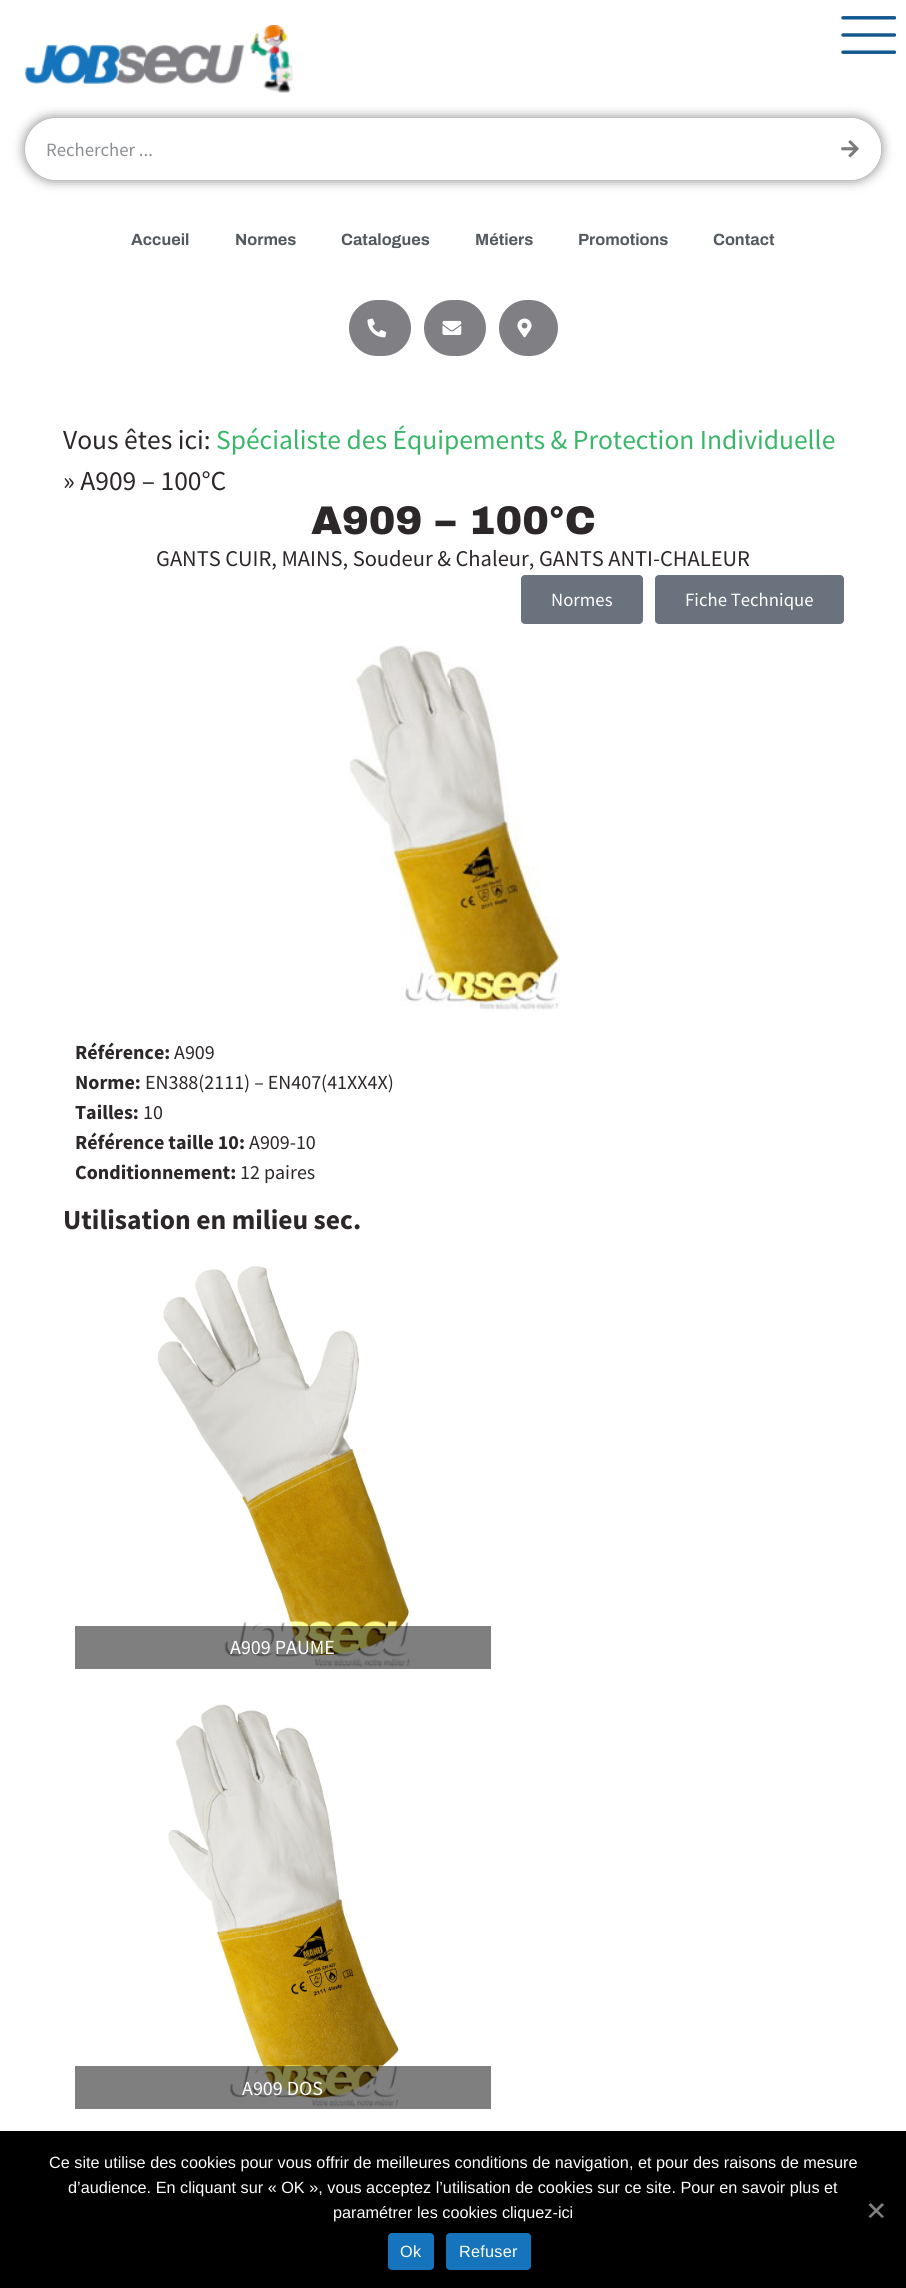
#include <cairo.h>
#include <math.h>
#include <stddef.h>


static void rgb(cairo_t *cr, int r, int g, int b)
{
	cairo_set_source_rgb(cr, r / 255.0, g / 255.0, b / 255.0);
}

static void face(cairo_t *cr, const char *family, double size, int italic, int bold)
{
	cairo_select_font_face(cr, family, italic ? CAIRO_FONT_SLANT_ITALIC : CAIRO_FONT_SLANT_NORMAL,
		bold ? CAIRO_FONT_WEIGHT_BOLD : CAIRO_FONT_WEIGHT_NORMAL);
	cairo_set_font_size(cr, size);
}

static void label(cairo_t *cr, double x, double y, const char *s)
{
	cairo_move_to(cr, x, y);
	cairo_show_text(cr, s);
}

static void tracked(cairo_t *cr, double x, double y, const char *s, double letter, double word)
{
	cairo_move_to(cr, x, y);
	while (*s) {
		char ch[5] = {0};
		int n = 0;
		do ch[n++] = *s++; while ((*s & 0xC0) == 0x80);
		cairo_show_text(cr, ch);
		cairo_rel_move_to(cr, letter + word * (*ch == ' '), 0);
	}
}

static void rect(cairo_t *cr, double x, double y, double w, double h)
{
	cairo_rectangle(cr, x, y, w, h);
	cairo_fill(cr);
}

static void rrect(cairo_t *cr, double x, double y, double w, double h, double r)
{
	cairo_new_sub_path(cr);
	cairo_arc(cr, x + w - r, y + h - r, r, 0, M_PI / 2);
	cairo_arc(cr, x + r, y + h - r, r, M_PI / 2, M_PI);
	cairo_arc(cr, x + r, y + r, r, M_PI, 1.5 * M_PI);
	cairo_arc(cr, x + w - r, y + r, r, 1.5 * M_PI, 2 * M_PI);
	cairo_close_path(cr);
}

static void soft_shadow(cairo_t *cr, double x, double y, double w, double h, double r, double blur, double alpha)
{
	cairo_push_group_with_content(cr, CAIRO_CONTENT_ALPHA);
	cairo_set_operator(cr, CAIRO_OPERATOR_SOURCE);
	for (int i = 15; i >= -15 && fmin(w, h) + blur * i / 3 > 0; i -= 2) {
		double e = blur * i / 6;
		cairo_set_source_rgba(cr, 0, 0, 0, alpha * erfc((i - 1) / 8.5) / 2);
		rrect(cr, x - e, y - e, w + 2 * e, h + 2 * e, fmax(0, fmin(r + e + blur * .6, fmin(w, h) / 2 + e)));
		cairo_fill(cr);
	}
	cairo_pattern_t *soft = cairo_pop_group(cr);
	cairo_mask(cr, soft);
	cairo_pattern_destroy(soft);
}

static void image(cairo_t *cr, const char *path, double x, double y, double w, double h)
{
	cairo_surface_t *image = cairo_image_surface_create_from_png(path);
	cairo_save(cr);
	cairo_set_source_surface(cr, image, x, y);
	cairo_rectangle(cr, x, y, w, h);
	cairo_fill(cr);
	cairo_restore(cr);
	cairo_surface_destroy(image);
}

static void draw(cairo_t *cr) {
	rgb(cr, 255, 255, 255);
	cairo_paint(cr);
	image(cr, "image0.png", 25, 25, 268, 68);
	image(cr, "image1.png", 841, 16, 55, 38);
	rgb(cr, 0, 0, 0);
	soft_shadow(cr, 25, 118, 856, 62, 31, 6, 0.5);
	rgb(cr, 255, 255, 255);
	rrect(cr, 25, 118, 856, 62, 31);
	cairo_fill(cr);
	face(cr, "Source Sans Pro", 18.75, 0, 0);
	rgb(cr, 140, 143, 147);
	label(cr, 46, 156, "Rechercher ...");
	rgb(cr, 255, 255, 255);
	cairo_new_path(cr);
	cairo_move_to(cr, 819, 118);
	cairo_line_to(cr, 850, 118);
	cairo_curve_to(cr, 867, 118, 881, 132, 881, 149);
	cairo_curve_to(cr, 881, 166, 867, 180, 850, 180);
	cairo_line_to(cr, 819, 180);
	cairo_close_path(cr);
	cairo_fill(cr);
	image(cr, "image2.png", 841, 140, 18, 18);
	face(cr, "Archivo", 16.25, 0, 1);
	rgb(cr, 84, 89, 95);
	label(cr, 131, 245, "Accueil");
	label(cr, 235, 245, "Normes");
	label(cr, 341, 245, "Catalogues");
	label(cr, 475, 245, "Métiers");
	label(cr, 578, 245, "Promotions");
	label(cr, 713, 245, "Contact");
	rgb(cr, 128, 127, 132);
	rrect(cr, 349, 300, 62, 56, 28);
	cairo_fill(cr);
	image(cr, "image3.png", 367, 318, 20, 20);
	rrect(cr, 424, 300, 62, 56, 28);
	cairo_fill(cr);
	image(cr, "image4.png", 442, 320, 20, 15);
	rrect(cr, 499, 300, 59, 56, 28);
	cairo_fill(cr);
	image(cr, "image5.png", 517, 318, 15, 20);
	face(cr, "Source Sans Pro", 27.5, 0, 0);
	rgb(cr, 44, 39, 40);
	label(cr, 63, 449, "Vous êtes ici:");
	rgb(cr, 56, 183, 104);
	label(cr, 216, 449, "Spécialiste des Équipements & Protection Individuelle");
	rgb(cr, 44, 39, 40);
	label(cr, 63, 490, "» A909 – 100°C");
	face(cr, "Archivo Black Black", 40, 0, 0);
	label(cr, 311, 534, "A909 – 100°C");
	face(cr, "Source Sans Pro", 22.5, 0, 0);
	label(cr, 156, 566, "GANTS CUIR, MAINS, Soudeur & Chaleur, GANTS ANTI-CHALEUR");
	rgb(cr, 105, 114, 125);
	rrect(cr, 521, 575, 122, 49, 4);
	cairo_fill(cr);
	face(cr, "Source Sans Pro", 18.75, 0, 0);
	rgb(cr, 255, 255, 255);
	label(cr, 551, 606, "Normes");
	rgb(cr, 105, 114, 125);
	rrect(cr, 655, 575, 189, 49, 4);
	cairo_fill(cr);
	rgb(cr, 255, 255, 255);
	label(cr, 685, 606, "Fiche Technique");
	image(cr, "image6.png", 349, 645, 212, 366);
	face(cr, "Source Sans Pro", 20, 0, 1);
	rgb(cr, 44, 39, 40);
	label(cr, 75, 1059, "Référence:");
	face(cr, "Source Sans Pro", 20, 0, 0);
	label(cr, 174, 1059, "A909");
	face(cr, "Source Sans Pro", 20, 0, 1);
	label(cr, 75, 1089, "Norme:");
	face(cr, "Source Sans Pro", 20, 0, 0);
	label(cr, 145, 1089, "EN388(2111) – EN407(41XX4X)");
	face(cr, "Source Sans Pro", 20, 0, 1);
	label(cr, 75, 1119, "Tailles:");
	face(cr, "Source Sans Pro", 20, 0, 0);
	label(cr, 143, 1119, "10");
	face(cr, "Source Sans Pro", 20, 0, 1);
	label(cr, 75, 1149, "Référence taille 10:");
	face(cr, "Source Sans Pro", 20, 0, 0);
	label(cr, 249, 1149, "A909-10");
	face(cr, "Source Sans Pro", 20, 0, 1);
	label(cr, 75, 1179, "Conditionnement:");
	face(cr, "Source Sans Pro", 20, 0, 0);
	label(cr, 240, 1179, "12 paires");
	face(cr, "Source Sans Pro", 27.5, 0, 1);
	label(cr, 63, 1229, "Utilisation en milieu sec.");
	image(cr, "image7.png", 157, 1266, 253, 401);
	cairo_set_source_rgba(cr, 0, 0, 0, 0.5);
	rect(cr, 75, 1626, 416, 43);
	face(cr, "Source Sans Pro", 20, 0, 0);
	rgb(cr, 255, 255, 255);
	label(cr, 230, 1654, "A909 PAUME");
	image(cr, "image8.png", 168, 1704, 231, 403);
	cairo_set_source_rgba(cr, 0, 0, 0, 0.5);
	rect(cr, 75, 2066, 416, 43);
	rgb(cr, 255, 255, 255);
	label(cr, 242, 2095, "A909 DOS");
	rgb(cr, 0, 0, 0);
	rect(cr, 0, 2131, 906, 157);
	face(cr, "Liberation Sans", 16.25, 0, 0);
	rgb(cr, 255, 255, 255);
	label(cr, 49, 2168, "Ce site utilise des cookies pour vous offrir de meilleures conditions de navigation, et pour des raisons de mesure");
	label(cr, 68, 2193, "d’audience. En cliquant sur « OK », vous acceptez l’utilisation de cookies sur ce site. Pour en savoir plus et");
	label(cr, 333, 2218, "paramétrer les cookies cliquez-ici");
	rgb(cr, 128, 128, 128);
	cairo_new_path(cr);
	cairo_move_to(cr, 882, 2203);
	cairo_line_to(cr, 884, 2205);
	cairo_line_to(cr, 870.5, 2218);
	cairo_line_to(cr, 868.5, 2216.5);
	cairo_close_path(cr);
	cairo_fill(cr);
	cairo_new_path(cr);
	cairo_move_to(cr, 868.5, 2205);
	cairo_line_to(cr, 870.5, 2203);
	cairo_line_to(cr, 884, 2216.5);
	cairo_line_to(cr, 882, 2218);
	cairo_close_path(cr);
	cairo_fill(cr);
	rgb(cr, 22, 116, 188);
	rrect(cr, 388, 2233, 46, 37, 4);
	cairo_fill(cr);
	rgb(cr, 255, 255, 255);
	tracked(cr, 400, 2257, "Ok", 0.25, 0);
	rgb(cr, 22, 116, 188);
	rrect(cr, 446, 2233, 85, 37, 4);
	cairo_fill(cr);
	rgb(cr, 255, 255, 255);
	tracked(cr, 459, 2257, "Refuser", 0.25, 0);
}

int main(void) {
	cairo_surface_t *surface = cairo_image_surface_create(CAIRO_FORMAT_RGB24, 906, 2288);
	cairo_t *cr = cairo_create(surface);
	cairo_font_options_t *options = cairo_font_options_create();
	cairo_font_options_set_hint_metrics(options, CAIRO_HINT_METRICS_OFF);
	cairo_font_options_set_hint_style(options, CAIRO_HINT_STYLE_NONE);
	cairo_set_font_options(cr, options);
	cairo_set_miter_limit(cr, 4);
	draw(cr);
	cairo_surface_write_to_png(surface, "render.png");
	cairo_font_options_destroy(options);
	cairo_destroy(cr);
	cairo_surface_destroy(surface);
	return 0;
}
